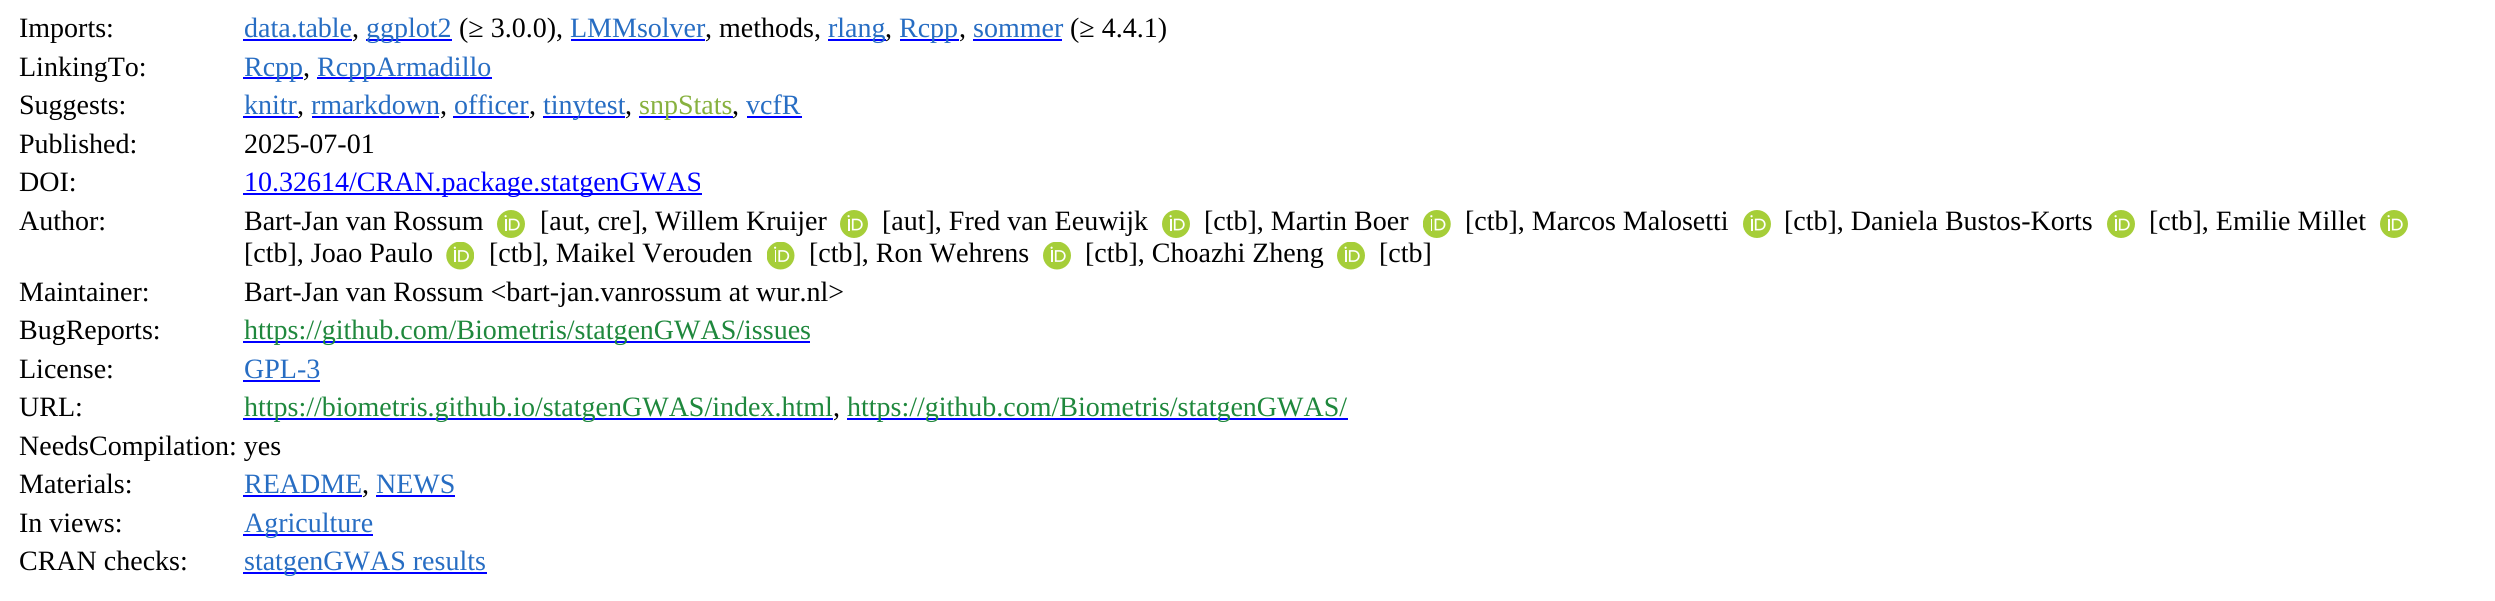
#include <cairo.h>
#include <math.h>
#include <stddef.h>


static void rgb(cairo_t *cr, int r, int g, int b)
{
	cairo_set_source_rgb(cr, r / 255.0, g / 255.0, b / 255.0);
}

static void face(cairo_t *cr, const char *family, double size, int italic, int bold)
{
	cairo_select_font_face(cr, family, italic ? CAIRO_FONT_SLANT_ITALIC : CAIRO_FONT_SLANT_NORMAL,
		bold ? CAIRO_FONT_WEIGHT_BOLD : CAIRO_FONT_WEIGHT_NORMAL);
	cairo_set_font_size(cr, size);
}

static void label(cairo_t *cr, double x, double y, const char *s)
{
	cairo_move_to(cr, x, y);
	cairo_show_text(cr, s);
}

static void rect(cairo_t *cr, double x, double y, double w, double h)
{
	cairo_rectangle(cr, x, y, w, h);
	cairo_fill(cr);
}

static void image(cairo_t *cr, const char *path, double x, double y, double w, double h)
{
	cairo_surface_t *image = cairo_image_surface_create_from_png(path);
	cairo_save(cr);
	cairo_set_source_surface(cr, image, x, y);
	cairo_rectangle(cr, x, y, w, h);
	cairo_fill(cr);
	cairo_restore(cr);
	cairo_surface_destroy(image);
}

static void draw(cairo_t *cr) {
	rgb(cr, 255, 255, 255);
	cairo_paint(cr);
	face(cr, "Liberation Serif", 28, 0, 0);
	rgb(cr, 0, 0, 0);
	label(cr, 19, 37, "Imports:");
	rgb(cr, 39, 109, 195);
	label(cr, 244, 37, "data.table");
	rgb(cr, 0, 0, 255);
	rect(cr, 243, 39, 109, 2);
	rgb(cr, 0, 0, 0);
	label(cr, 352, 37, ",");
	rgb(cr, 0, 0, 255);
	rect(cr, 366, 39, 86, 2);
	rgb(cr, 39, 109, 195);
	label(cr, 366, 37, "ggplot2");
	rgb(cr, 0, 0, 0);
	label(cr, 459, 37, "(≥ 3.0.0),");
	rgb(cr, 39, 109, 195);
	label(cr, 570, 37, "LMMsolver");
	rgb(cr, 0, 0, 255);
	rect(cr, 571, 39, 134, 2);
	rgb(cr, 0, 0, 0);
	label(cr, 705, 37, ", methods,");
	rgb(cr, 0, 0, 255);
	rect(cr, 828, 39, 58, 2);
	rgb(cr, 39, 109, 195);
	label(cr, 828, 37, "rlang");
	rgb(cr, 0, 0, 0);
	label(cr, 885, 37, ",");
	rgb(cr, 0, 0, 255);
	rect(cr, 900, 39, 59, 2);
	rgb(cr, 39, 109, 195);
	label(cr, 899, 37, "Rcpp");
	rgb(cr, 0, 0, 0);
	label(cr, 959, 37, ",");
	rgb(cr, 39, 109, 195);
	label(cr, 973, 37, "sommer");
	rgb(cr, 0, 0, 255);
	rect(cr, 973, 39, 89, 2);
	rgb(cr, 0, 0, 0);
	label(cr, 1070, 37, "(≥ 4.4.1)");
	label(cr, 19, 76, "LinkingTo:");
	rgb(cr, 0, 0, 255);
	rect(cr, 243, 77, 60, 2);
	rgb(cr, 39, 109, 195);
	label(cr, 244, 76, "Rcpp");
	rgb(cr, 0, 0, 0);
	label(cr, 303, 76, ",");
	rgb(cr, 0, 0, 255);
	rect(cr, 317, 77, 175, 2);
	rgb(cr, 39, 109, 195);
	label(cr, 317, 76, "RcppArmadillo");
	rgb(cr, 0, 0, 0);
	label(cr, 19, 114, "Suggests:");
	rgb(cr, 39, 109, 195);
	label(cr, 244, 114, "knitr");
	rgb(cr, 0, 0, 255);
	rect(cr, 243, 116, 55, 2);
	rgb(cr, 0, 0, 0);
	label(cr, 297, 114, ",");
	rgb(cr, 39, 109, 195);
	label(cr, 311, 114, "rmarkdown");
	rgb(cr, 0, 0, 255);
	rect(cr, 312, 116, 127, 2);
	rgb(cr, 0, 0, 0);
	label(cr, 440, 114, ",");
	rgb(cr, 39, 109, 195);
	label(cr, 454, 114, "officer");
	rgb(cr, 0, 0, 255);
	rect(cr, 453, 116, 76, 2);
	rgb(cr, 0, 0, 0);
	label(cr, 529, 114, ",");
	rgb(cr, 0, 0, 255);
	rect(cr, 543, 116, 82, 2);
	rgb(cr, 39, 109, 195);
	label(cr, 543, 114, "tinytest");
	rgb(cr, 0, 0, 0);
	label(cr, 625, 114, ",");
	rgb(cr, 0, 0, 255);
	rect(cr, 639, 116, 94, 2);
	rgb(cr, 135, 177, 63);
	label(cr, 639, 114, "snpStats");
	rgb(cr, 0, 0, 0);
	label(cr, 732, 114, ",");
	rgb(cr, 39, 109, 195);
	label(cr, 746, 114, "vcfR");
	rgb(cr, 0, 0, 255);
	rect(cr, 747, 116, 55, 2);
	rgb(cr, 0, 0, 0);
	label(cr, 19, 153, "Published:");
	label(cr, 244, 153, "2025-07-01");
	label(cr, 19, 191, "DOI:");
	rgb(cr, 0, 0, 255);
	rect(cr, 243, 193, 459, 2);
	label(cr, 244, 191, "10.32614/CRAN.package.statgenGWAS");
	rgb(cr, 0, 0, 0);
	label(cr, 19, 230, "Author:");
	label(cr, 244, 230, "Bart-Jan van Rossum");
	image(cr, "image0.png", 497, 210, 28, 28);
	label(cr, 540, 230, "[aut, cre], Willem Kruijer");
	image(cr, "image0.png", 840, 210, 28, 28);
	label(cr, 882, 230, "[aut], Fred van Eeuwijk");
	image(cr, "image0.png", 1162, 210, 28, 28);
	label(cr, 1204, 230, "[ctb], Martin Boer");
	image(cr, "image1.png", 1423, 210, 28, 28);
	label(cr, 1465, 230, "[ctb], Marcos Malosetti");
	image(cr, "image0.png", 1743, 210, 28, 28);
	label(cr, 1784, 230, "[ctb], Daniela Bustos-Korts");
	image(cr, "image0.png", 2107, 210, 28, 28);
	label(cr, 2149, 230, "[ctb], Emilie Millet");
	image(cr, "image0.png", 2380, 210, 28, 28);
	label(cr, 244, 262, "[ctb], Joao Paulo");
	image(cr, "image2.png", 446, 242, 28, 28);
	label(cr, 489, 262, "[ctb], Maikel Verouden");
	image(cr, "image3.png", 767, 242, 28, 28);
	label(cr, 809, 262, "[ctb], Ron Wehrens");
	image(cr, "image4.png", 1043, 242, 28, 28);
	label(cr, 1085, 262, "[ctb], Choazhi Zheng");
	image(cr, "image4.png", 1337, 242, 28, 28);
	label(cr, 1379, 262, "[ctb]");
	label(cr, 19, 301, "Maintainer:");
	label(cr, 244, 301, "Bart-Jan van Rossum <bart-jan.vanrossum at wur.nl>");
	label(cr, 19, 339, "BugReports:");
	rgb(cr, 0, 0, 255);
	rect(cr, 243, 341, 567, 2);
	rgb(cr, 31, 136, 61);
	label(cr, 244, 339, "https://github.com/Biometris/statgenGWAS/issues");
	rgb(cr, 0, 0, 0);
	label(cr, 19, 378, "License:");
	rgb(cr, 39, 109, 195);
	label(cr, 244, 378, "GPL-3");
	rgb(cr, 0, 0, 255);
	rect(cr, 243, 380, 77, 2);
	rgb(cr, 0, 0, 0);
	label(cr, 19, 416, "URL:");
	rgb(cr, 0, 0, 255);
	rect(cr, 243, 418, 590, 2);
	rgb(cr, 31, 136, 61);
	label(cr, 244, 416, "https://biometris.github.io/statgenGWAS/index.html");
	rgb(cr, 0, 0, 0);
	label(cr, 833, 416, ",");
	rgb(cr, 0, 0, 255);
	rect(cr, 847, 418, 501, 2);
	rgb(cr, 31, 136, 61);
	label(cr, 847, 416, "https://github.com/Biometris/statgenGWAS/");
	rgb(cr, 0, 0, 0);
	label(cr, 19, 455, "NeedsCompilation: yes");
	label(cr, 19, 493, "Materials:");
	rgb(cr, 39, 109, 195);
	label(cr, 244, 493, "README");
	rgb(cr, 0, 0, 255);
	rect(cr, 243, 495, 119, 2);
	rgb(cr, 0, 0, 0);
	label(cr, 362, 493, ",");
	rgb(cr, 39, 109, 195);
	label(cr, 376, 493, "NEWS");
	rgb(cr, 0, 0, 255);
	rect(cr, 376, 495, 79, 2);
	rgb(cr, 0, 0, 0);
	label(cr, 19, 532, "In views:");
	rgb(cr, 0, 0, 255);
	rect(cr, 243, 534, 130, 2);
	rgb(cr, 39, 109, 195);
	label(cr, 244, 532, "Agriculture");
	rgb(cr, 0, 0, 0);
	label(cr, 19, 570, "CRAN checks:");
	rgb(cr, 0, 0, 255);
	rect(cr, 243, 572, 244, 2);
	rgb(cr, 39, 109, 195);
	label(cr, 244, 570, "statgenGWAS results");
}

int main(void) {
	cairo_surface_t *surface = cairo_image_surface_create(CAIRO_FORMAT_RGB24, 2495, 601);
	cairo_t *cr = cairo_create(surface);
	cairo_font_options_t *options = cairo_font_options_create();
	cairo_font_options_set_hint_metrics(options, CAIRO_HINT_METRICS_OFF);
	cairo_font_options_set_hint_style(options, CAIRO_HINT_STYLE_NONE);
	cairo_set_font_options(cr, options);
	cairo_set_miter_limit(cr, 4);
	draw(cr);
	cairo_surface_write_to_png(surface, "render.png");
	cairo_font_options_destroy(options);
	cairo_destroy(cr);
	cairo_surface_destroy(surface);
	return 0;
}
